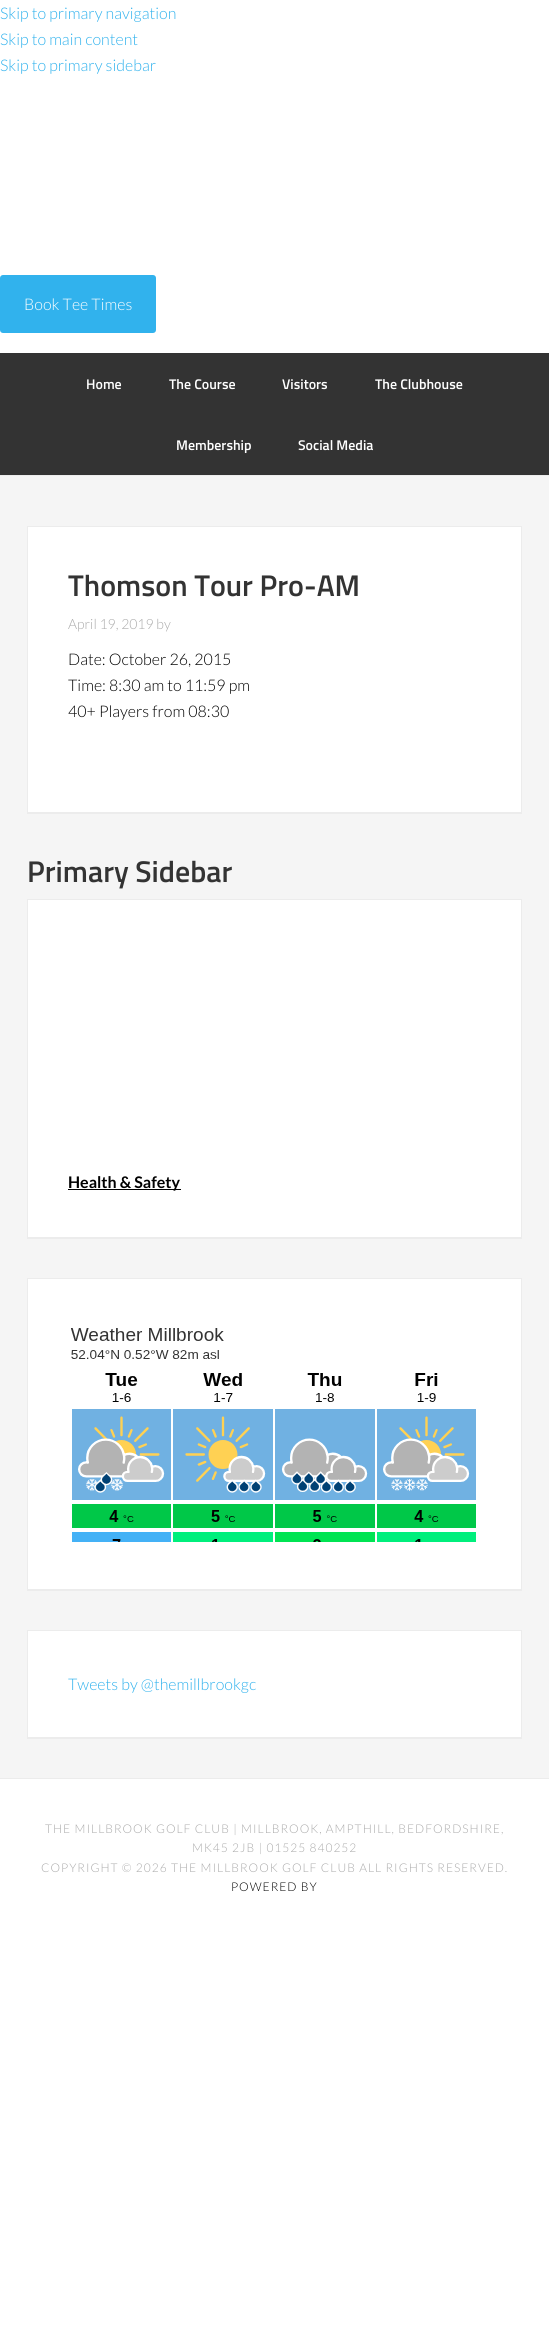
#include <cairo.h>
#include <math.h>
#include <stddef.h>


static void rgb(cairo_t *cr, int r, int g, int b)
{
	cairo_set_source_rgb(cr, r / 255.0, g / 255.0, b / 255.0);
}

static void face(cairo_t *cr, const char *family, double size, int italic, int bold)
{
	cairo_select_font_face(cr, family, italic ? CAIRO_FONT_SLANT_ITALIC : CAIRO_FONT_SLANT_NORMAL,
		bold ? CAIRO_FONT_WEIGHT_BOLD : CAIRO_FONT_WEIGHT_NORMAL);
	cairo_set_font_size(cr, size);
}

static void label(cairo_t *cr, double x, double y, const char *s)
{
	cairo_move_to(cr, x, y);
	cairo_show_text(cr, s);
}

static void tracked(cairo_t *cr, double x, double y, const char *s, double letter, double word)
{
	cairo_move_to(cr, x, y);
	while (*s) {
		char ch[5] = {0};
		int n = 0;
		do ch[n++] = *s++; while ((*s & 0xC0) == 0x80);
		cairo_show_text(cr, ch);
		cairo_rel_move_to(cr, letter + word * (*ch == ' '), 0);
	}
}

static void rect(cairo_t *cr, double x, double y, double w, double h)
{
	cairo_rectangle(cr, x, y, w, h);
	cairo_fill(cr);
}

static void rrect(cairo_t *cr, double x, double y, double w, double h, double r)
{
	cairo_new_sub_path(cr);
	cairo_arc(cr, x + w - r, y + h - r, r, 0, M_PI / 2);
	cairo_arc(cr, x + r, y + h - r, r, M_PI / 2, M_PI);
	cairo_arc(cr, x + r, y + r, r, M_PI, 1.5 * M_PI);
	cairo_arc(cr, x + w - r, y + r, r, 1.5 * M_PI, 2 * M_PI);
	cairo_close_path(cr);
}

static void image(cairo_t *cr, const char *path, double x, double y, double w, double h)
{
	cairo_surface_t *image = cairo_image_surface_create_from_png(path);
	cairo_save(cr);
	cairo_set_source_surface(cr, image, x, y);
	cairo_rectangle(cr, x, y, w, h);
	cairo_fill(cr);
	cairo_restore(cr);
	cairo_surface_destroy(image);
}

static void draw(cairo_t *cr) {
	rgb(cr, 255, 255, 255);
	cairo_paint(cr);
	face(cr, "Lato Light", 16, 0, 0);
	rgb(cr, 49, 178, 237);
	label(cr, 0, 19, "Skip to primary navigation");
	label(cr, 0, 45, "Skip to main content");
	label(cr, 0, 71, "Skip to primary sidebar");
	rrect(cr, 0, 275, 156, 58, 3);
	cairo_fill(cr);
	rgb(cr, 255, 255, 255);
	label(cr, 24, 310, "Book Tee Times");
	rgb(cr, 51, 51, 51);
	rect(cr, 0, 353, 549, 122);
	face(cr, "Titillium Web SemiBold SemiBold", 14, 0, 0);
	rgb(cr, 255, 255, 255);
	label(cr, 86, 389, "Home");
	label(cr, 169, 389, "The Course");
	label(cr, 282, 389, "Visitors");
	label(cr, 375, 389, "The Clubhouse");
	label(cr, 176, 450, "Membership");
	label(cr, 298, 450, "Social Media");
	rgb(cr, 245, 245, 245);
	rect(cr, 0, 476, 549, 1302);
	rgb(cr, 236, 236, 236);
	rect(cr, 0, 475, 549, 1);
	rect(cr, 27, 813, 495, 1);
	rgb(cr, 255, 255, 255);
	cairo_rectangle(cr, 27.5, 526.5, 494, 286);
	cairo_fill_preserve(cr);
	rgb(cr, 236, 236, 236);
	cairo_set_line_width(cr, 1);
	cairo_stroke(cr);
	face(cr, "Titillium Web SemiBold SemiBold", 30, 0, 0);
	rgb(cr, 51, 51, 51);
	label(cr, 68, 596, "Thomson Tour Pro-AM");
	face(cr, "Lato Light", 14, 0, 0);
	rgb(cr, 170, 170, 170);
	label(cr, 68, 629, "April 19, 2019 by");
	face(cr, "Lato Light", 16, 0, 0);
	rgb(cr, 0, 0, 0);
	label(cr, 68, 665, "Date: October 26, 2015");
	label(cr, 68, 691, "Time: 8:30 am to 11:59 pm");
	label(cr, 68, 717, "40+ Players from 08:30");
	face(cr, "Titillium Web SemiBold SemiBold", 30, 0, 0);
	rgb(cr, 51, 51, 51);
	label(cr, 27, 882, "Primary Sidebar");
	rgb(cr, 236, 236, 236);
	rect(cr, 27, 1238, 495, 1);
	rgb(cr, 255, 255, 255);
	cairo_rectangle(cr, 27.5, 899.5, 494, 338);
	cairo_fill_preserve(cr);
	rgb(cr, 236, 236, 236);
	cairo_stroke(cr);
	rgb(cr, 0, 0, 0);
	rect(cr, 68, 1189, 113, 1);
	face(cr, "Lato", 16, 0, 1);
	label(cr, 68, 1188, "Health & Safety");
	rgb(cr, 236, 236, 236);
	rect(cr, 27, 1590, 495, 1);
	rgb(cr, 255, 255, 255);
	cairo_rectangle(cr, 27.5, 1278.5, 494, 311);
	cairo_fill_preserve(cr);
	rgb(cr, 236, 236, 236);
	cairo_stroke(cr);
	image(cr, "image0.png", 71, 1328, 405, 214);
	rect(cr, 27, 1738, 495, 1);
	rgb(cr, 255, 255, 255);
	cairo_rectangle(cr, 27.5, 1630.5, 494, 107);
	cairo_fill_preserve(cr);
	rgb(cr, 236, 236, 236);
	cairo_stroke(cr);
	face(cr, "Lato Light", 16, 0, 0);
	rgb(cr, 49, 178, 237);
	label(cr, 68, 1690, "Tweets by @themillbrookgc");
	rgb(cr, 236, 236, 236);
	rect(cr, 0, 1778, 549, 1);
	face(cr, "Lato Light", 12, 0, 0);
	rgb(cr, 170, 170, 170);
	tracked(cr, 45, 1833, "THE MILLBROOK GOLF CLUB | MILLBROOK, AMPTHILL, BEDFORDSHIRE,", 1, 0);
	tracked(cr, 192, 1852, "MK45 2JB | 01525 840252", 1, 0);
	tracked(cr, 41, 1872, "COPYRIGHT © 2026 THE MILLBROOK GOLF CLUB ALL RIGHTS RESERVED.", 1, 0);
	rgb(cr, 0, 0, 0);
	tracked(cr, 231, 1891, "POWERED BY", 1, 0);
}

int main(void) {
	cairo_surface_t *surface = cairo_image_surface_create(CAIRO_FORMAT_RGB24, 549, 2338);
	cairo_t *cr = cairo_create(surface);
	cairo_font_options_t *options = cairo_font_options_create();
	cairo_font_options_set_hint_metrics(options, CAIRO_HINT_METRICS_OFF);
	cairo_font_options_set_hint_style(options, CAIRO_HINT_STYLE_NONE);
	cairo_set_font_options(cr, options);
	cairo_set_miter_limit(cr, 4);
	draw(cr);
	cairo_surface_write_to_png(surface, "render.png");
	cairo_font_options_destroy(options);
	cairo_destroy(cr);
	cairo_surface_destroy(surface);
	return 0;
}
